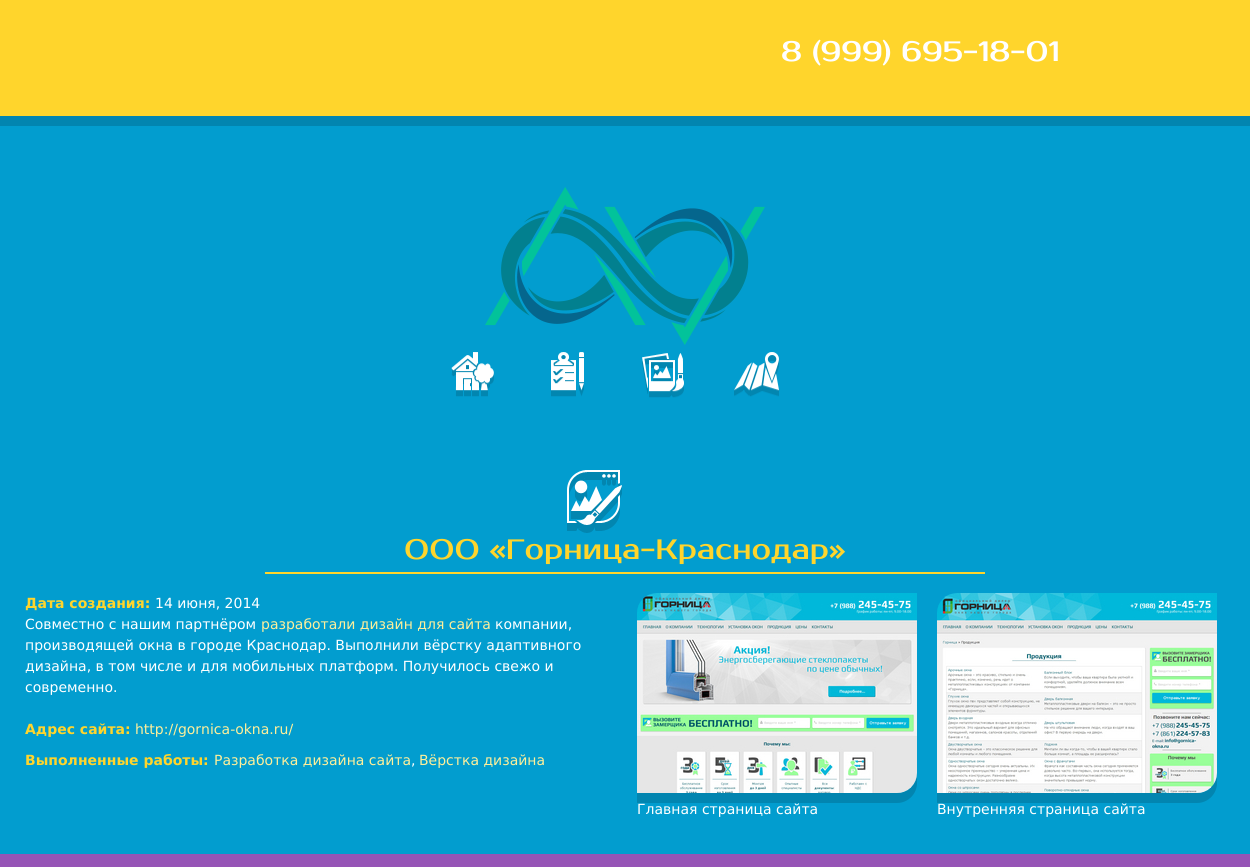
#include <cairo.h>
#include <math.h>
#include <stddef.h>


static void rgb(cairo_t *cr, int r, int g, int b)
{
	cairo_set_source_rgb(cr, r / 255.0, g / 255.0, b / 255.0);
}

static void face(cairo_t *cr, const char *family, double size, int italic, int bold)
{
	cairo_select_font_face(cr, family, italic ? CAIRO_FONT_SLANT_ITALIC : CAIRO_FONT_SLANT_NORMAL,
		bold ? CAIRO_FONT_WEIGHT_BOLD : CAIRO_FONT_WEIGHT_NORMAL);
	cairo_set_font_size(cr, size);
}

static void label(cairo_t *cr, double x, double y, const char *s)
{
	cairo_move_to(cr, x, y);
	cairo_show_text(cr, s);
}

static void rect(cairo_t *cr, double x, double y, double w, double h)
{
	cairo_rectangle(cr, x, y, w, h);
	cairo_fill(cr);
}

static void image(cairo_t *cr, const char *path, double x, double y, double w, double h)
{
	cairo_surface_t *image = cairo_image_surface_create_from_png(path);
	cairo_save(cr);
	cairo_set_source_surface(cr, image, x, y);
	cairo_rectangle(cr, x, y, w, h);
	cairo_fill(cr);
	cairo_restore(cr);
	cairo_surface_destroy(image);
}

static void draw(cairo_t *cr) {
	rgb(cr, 2, 157, 207);
	cairo_paint(cr);
	rgb(cr, 2, 133, 176);
	rect(cr, 0, 116, 1250, 10);
	rgb(cr, 255, 213, 44);
	rect(cr, 0, 0, 1250, 116);
	face(cr, "Prosto One", 28, 0, 0);
	rgb(cr, 255, 255, 255);
	label(cr, 781, 61, "8 (999) 695-18-01");
	image(cr, "image0.png", 485, 187, 280, 158);
	image(cr, "image1.png", 451, 352, 43, 45);
	image(cr, "image2.png", 551, 352, 33, 45);
	image(cr, "image3.png", 642, 353, 42, 45);
	image(cr, "image4.png", 734, 352, 45, 45);
	rgb(cr, 255, 213, 44);
	rect(cr, 265, 572, 720, 2);
	image(cr, "image5.png", 567, 470, 55, 63);
	label(cr, 404, 559, "ООО «Горница-Краснодар»");
	face(cr, "DejaVu Sans", 14, 0, 1);
	label(cr, 25, 608, "Дата создания:");
	face(cr, "DejaVu Sans", 14, 0, 0);
	rgb(cr, 255, 255, 255);
	label(cr, 155, 608, "14 июня, 2014");
	label(cr, 25, 629, "Совместно с нашим партнёром");
	rgb(cr, 255, 239, 154);
	label(cr, 261, 629, "разработали дизайн для сайта");
	rgb(cr, 255, 255, 255);
	label(cr, 495, 629, "компании,");
	label(cr, 25, 650, "производящей окна в городе Краснодар. Выполнили вёрстку адаптивного");
	label(cr, 25, 671, "дизайна, в том числе и для мобильных платформ. Получилось свежо и");
	label(cr, 25, 692, "современно.");
	face(cr, "DejaVu Sans", 14, 0, 1);
	rgb(cr, 255, 213, 44);
	label(cr, 25, 734, "Адрес сайта:");
	face(cr, "DejaVu Sans", 14, 0, 0);
	rgb(cr, 255, 239, 154);
	label(cr, 135, 734, "http://gornica-okna.ru/");
	face(cr, "DejaVu Sans", 14, 0, 1);
	rgb(cr, 255, 213, 44);
	label(cr, 25, 765, "Выполненные работы:");
	face(cr, "DejaVu Sans", 14, 0, 0);
	rgb(cr, 255, 239, 154);
	label(cr, 214, 765, "Разработка дизайна сайта");
	rgb(cr, 255, 255, 255);
	label(cr, 411, 765, ",");
	rgb(cr, 255, 239, 154);
	label(cr, 419, 765, "Вёрстка дизайна");
	rgb(cr, 2, 133, 176);
	cairo_new_path(cr);
	cairo_move_to(cr, 637, 793);
	cairo_line_to(cr, 637, 803);
	cairo_line_to(cr, 897, 803);
	cairo_curve_to(cr, 908, 803, 917, 794, 917, 783);
	cairo_line_to(cr, 917, 773);
	cairo_curve_to(cr, 917, 784, 908, 793, 897, 793);
	cairo_close_path(cr);
	cairo_fill(cr);
	image(cr, "image6.png", 637, 593, 280, 200);
	rgb(cr, 255, 255, 255);
	label(cr, 637, 814, "Главная страница сайта");
	rgb(cr, 2, 133, 176);
	cairo_new_path(cr);
	cairo_move_to(cr, 937, 793);
	cairo_line_to(cr, 937, 803);
	cairo_line_to(cr, 1197, 803);
	cairo_curve_to(cr, 1208, 803, 1217, 794, 1217, 783);
	cairo_line_to(cr, 1217, 773);
	cairo_curve_to(cr, 1217, 784, 1208, 793, 1197, 793);
	cairo_close_path(cr);
	cairo_fill(cr);
	image(cr, "image7.png", 937, 593, 280, 200);
	rgb(cr, 255, 255, 255);
	label(cr, 937, 814, "Внутренняя страница сайта");
	rgb(cr, 150, 84, 182);
	rect(cr, 0, 854, 1250, 13);
}

int main(void) {
	cairo_surface_t *surface = cairo_image_surface_create(CAIRO_FORMAT_RGB24, 1250, 867);
	cairo_t *cr = cairo_create(surface);
	cairo_font_options_t *options = cairo_font_options_create();
	cairo_font_options_set_hint_metrics(options, CAIRO_HINT_METRICS_OFF);
	cairo_font_options_set_hint_style(options, CAIRO_HINT_STYLE_NONE);
	cairo_set_font_options(cr, options);
	cairo_set_miter_limit(cr, 4);
	draw(cr);
	cairo_surface_write_to_png(surface, "render.png");
	cairo_font_options_destroy(options);
	cairo_destroy(cr);
	cairo_surface_destroy(surface);
	return 0;
}
